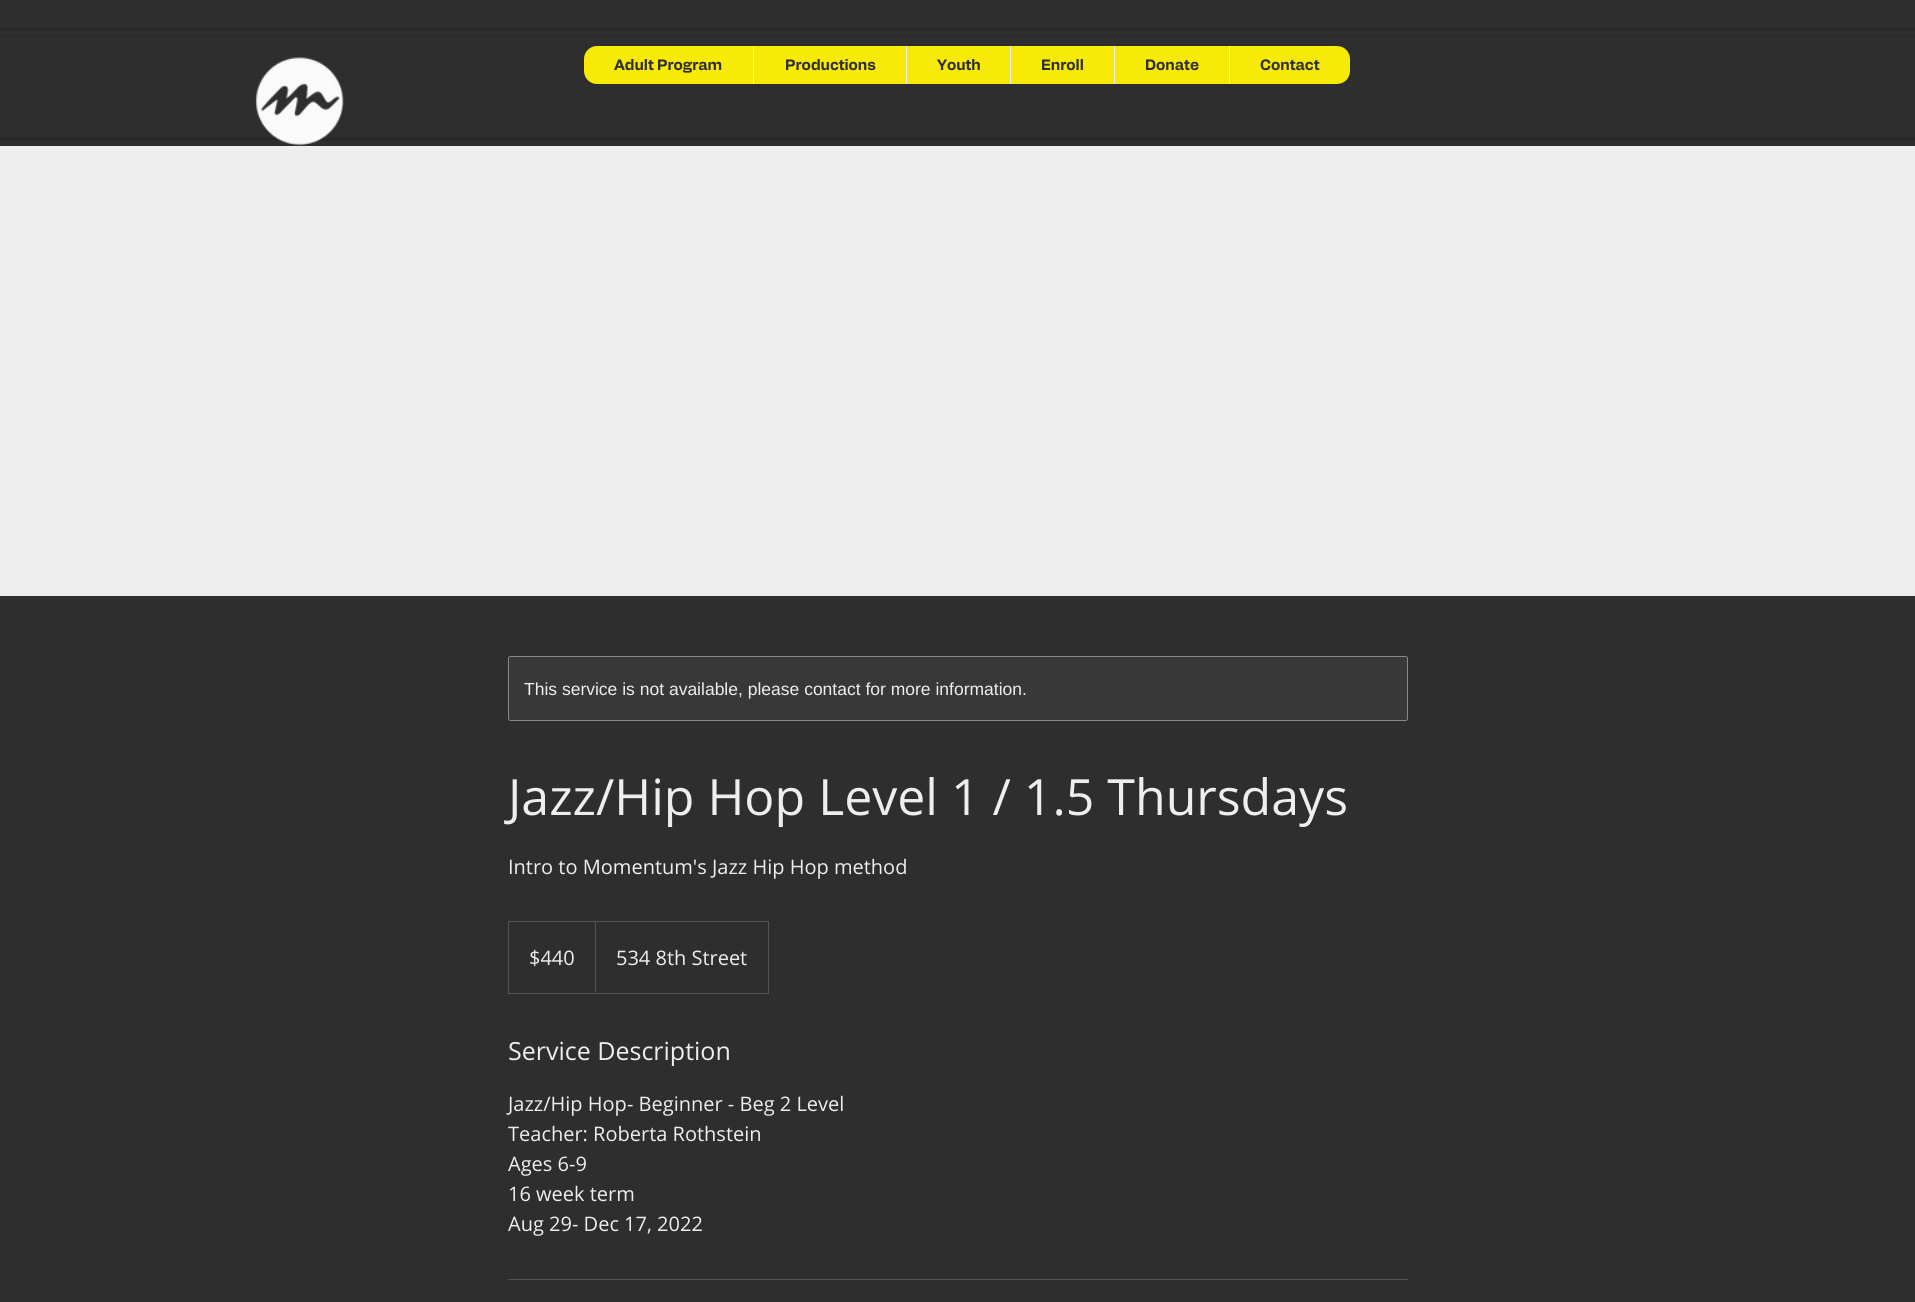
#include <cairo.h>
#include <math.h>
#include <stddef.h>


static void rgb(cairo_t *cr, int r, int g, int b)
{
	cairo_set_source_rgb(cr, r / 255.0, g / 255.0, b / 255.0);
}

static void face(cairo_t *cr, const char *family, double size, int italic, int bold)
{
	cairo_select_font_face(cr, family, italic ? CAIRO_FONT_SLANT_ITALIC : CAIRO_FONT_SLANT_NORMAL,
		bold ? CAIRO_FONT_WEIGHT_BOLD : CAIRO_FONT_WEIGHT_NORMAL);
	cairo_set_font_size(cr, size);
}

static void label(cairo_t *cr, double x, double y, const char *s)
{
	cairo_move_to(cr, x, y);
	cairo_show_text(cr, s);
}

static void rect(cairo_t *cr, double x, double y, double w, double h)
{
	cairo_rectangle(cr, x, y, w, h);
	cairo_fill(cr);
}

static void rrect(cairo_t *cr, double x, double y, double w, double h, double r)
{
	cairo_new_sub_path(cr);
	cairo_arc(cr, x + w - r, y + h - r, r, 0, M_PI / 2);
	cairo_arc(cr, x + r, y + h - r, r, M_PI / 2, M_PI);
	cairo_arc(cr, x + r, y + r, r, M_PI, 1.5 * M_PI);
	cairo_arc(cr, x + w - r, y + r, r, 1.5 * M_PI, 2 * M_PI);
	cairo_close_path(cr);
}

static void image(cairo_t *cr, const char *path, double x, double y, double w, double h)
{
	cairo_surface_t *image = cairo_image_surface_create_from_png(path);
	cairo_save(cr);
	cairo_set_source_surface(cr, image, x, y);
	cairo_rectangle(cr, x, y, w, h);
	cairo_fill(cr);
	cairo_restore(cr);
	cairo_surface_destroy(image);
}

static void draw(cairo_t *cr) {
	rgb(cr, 47, 46, 46);
	cairo_paint(cr);
	image(cr, "image0.png", 0, 28, 1915, 118);
	image(cr, "image1.png", 255, 57, 89, 89);
	rgb(cr, 247, 234, 6);
	rrect(cr, 584, 46, 766, 38, 13);
	cairo_fill(cr);
	face(cr, "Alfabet", 15, 0, 1);
	rgb(cr, 47, 46, 46);
	label(cr, 614, 70, "Adult Program");
	rgb(cr, 238, 238, 238);
	rect(cr, 753, 46, 1, 38);
	rgb(cr, 47, 46, 46);
	label(cr, 785, 70, "Productions");
	rgb(cr, 238, 238, 238);
	rect(cr, 906, 46, 1, 38);
	rgb(cr, 47, 46, 46);
	label(cr, 937, 70, "Youth");
	rgb(cr, 238, 238, 238);
	rect(cr, 1010, 46, 1, 38);
	rgb(cr, 47, 46, 46);
	label(cr, 1041, 70, "Enroll");
	rgb(cr, 238, 238, 238);
	rect(cr, 1114, 46, 1, 38);
	rgb(cr, 47, 46, 46);
	label(cr, 1145, 70, "Donate");
	rgb(cr, 238, 238, 238);
	rect(cr, 1229, 46, 1, 38);
	rgb(cr, 47, 46, 46);
	label(cr, 1260, 70, "Contact");
	rgb(cr, 238, 238, 238);
	rect(cr, 0, 146, 1915, 450);
	rgb(cr, 57, 56, 56);
	rrect(cr, 508, 656, 900, 65, 2.5);
	cairo_fill(cr);
	rrect(cr, 508.5, 656.5, 899, 64, 2);
	cairo_set_source_rgba(cr, 1, 1, 1, 0.4);
	cairo_set_line_width(cr, 1);
	cairo_stroke(cr);
	face(cr, "Liberation Sans", 17.5, 0, 0);
	rgb(cr, 238, 238, 238);
	label(cr, 524, 695, "This service is not available, please contact for more information.");
	face(cr, "Open Sans", 50, 0, 0);
	label(cr, 508, 815, "Jazz/Hip Hop Level 1 / 1.5 Thursdays");
	face(cr, "Open Sans", 20, 0, 0);
	label(cr, 508, 874, "Intro to Momentum's Jazz Hip Hop method");
	cairo_rectangle(cr, 508.5, 921.5, 260, 72);
	rgb(cr, 85, 84, 84);
	cairo_stroke(cr);
	rgb(cr, 238, 238, 238);
	label(cr, 529, 965, "$440");
	rgb(cr, 85, 84, 84);
	cairo_new_path(cr);
	cairo_move_to(cr, 595, 992);
	cairo_line_to(cr, 595, 921);
	cairo_line_to(cr, 596, 922);
	cairo_line_to(cr, 596, 992);
	cairo_close_path(cr);
	cairo_fill(cr);
	rgb(cr, 238, 238, 238);
	label(cr, 616, 965, "534 8th Street");
	face(cr, "Open Sans", 25, 0, 0);
	label(cr, 508, 1060, "Service Description");
	face(cr, "Open Sans", 20, 0, 0);
	label(cr, 508, 1111, "Jazz/Hip Hop- Beginner - Beg 2 Level");
	label(cr, 508, 1141, "Teacher: Roberta Rothstein");
	label(cr, 508, 1171, "Ages 6-9");
	label(cr, 508, 1201, "16 week term");
	label(cr, 508, 1231, "Aug 29- Dec 17, 2022");
	rgb(cr, 85, 84, 84);
	rect(cr, 508, 1279, 900, 1);
}

int main(void) {
	cairo_surface_t *surface = cairo_image_surface_create(CAIRO_FORMAT_RGB24, 1915, 1302);
	cairo_t *cr = cairo_create(surface);
	cairo_font_options_t *options = cairo_font_options_create();
	cairo_font_options_set_hint_metrics(options, CAIRO_HINT_METRICS_OFF);
	cairo_font_options_set_hint_style(options, CAIRO_HINT_STYLE_NONE);
	cairo_set_font_options(cr, options);
	cairo_set_miter_limit(cr, 4);
	draw(cr);
	cairo_surface_write_to_png(surface, "render.png");
	cairo_font_options_destroy(options);
	cairo_destroy(cr);
	cairo_surface_destroy(surface);
	return 0;
}
